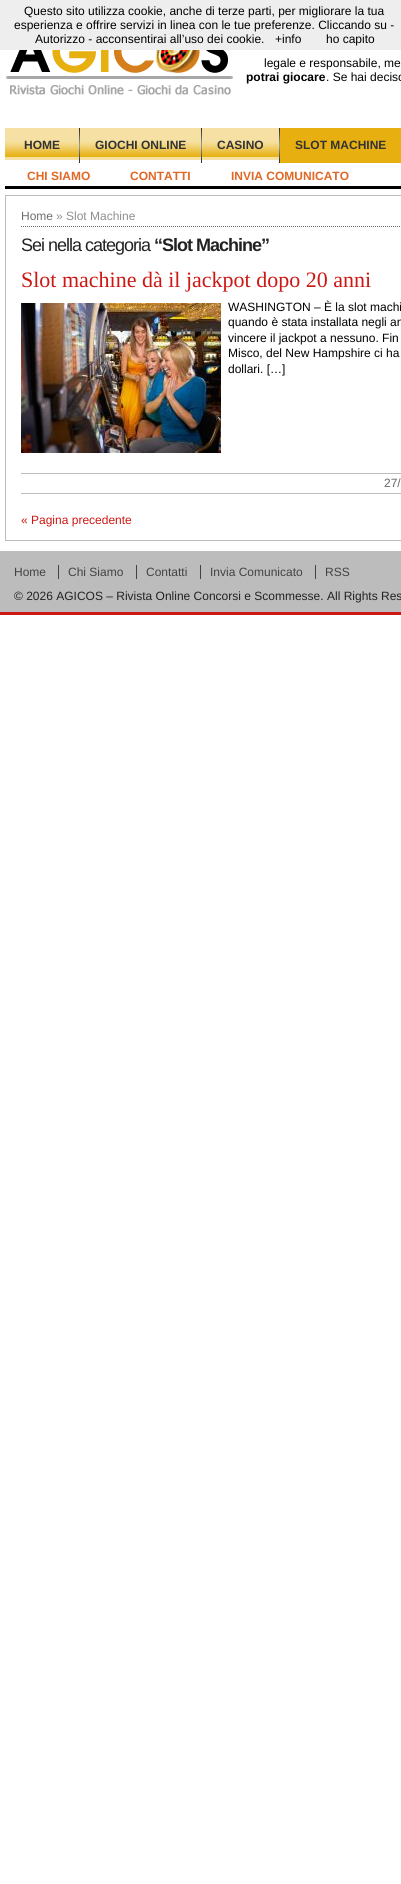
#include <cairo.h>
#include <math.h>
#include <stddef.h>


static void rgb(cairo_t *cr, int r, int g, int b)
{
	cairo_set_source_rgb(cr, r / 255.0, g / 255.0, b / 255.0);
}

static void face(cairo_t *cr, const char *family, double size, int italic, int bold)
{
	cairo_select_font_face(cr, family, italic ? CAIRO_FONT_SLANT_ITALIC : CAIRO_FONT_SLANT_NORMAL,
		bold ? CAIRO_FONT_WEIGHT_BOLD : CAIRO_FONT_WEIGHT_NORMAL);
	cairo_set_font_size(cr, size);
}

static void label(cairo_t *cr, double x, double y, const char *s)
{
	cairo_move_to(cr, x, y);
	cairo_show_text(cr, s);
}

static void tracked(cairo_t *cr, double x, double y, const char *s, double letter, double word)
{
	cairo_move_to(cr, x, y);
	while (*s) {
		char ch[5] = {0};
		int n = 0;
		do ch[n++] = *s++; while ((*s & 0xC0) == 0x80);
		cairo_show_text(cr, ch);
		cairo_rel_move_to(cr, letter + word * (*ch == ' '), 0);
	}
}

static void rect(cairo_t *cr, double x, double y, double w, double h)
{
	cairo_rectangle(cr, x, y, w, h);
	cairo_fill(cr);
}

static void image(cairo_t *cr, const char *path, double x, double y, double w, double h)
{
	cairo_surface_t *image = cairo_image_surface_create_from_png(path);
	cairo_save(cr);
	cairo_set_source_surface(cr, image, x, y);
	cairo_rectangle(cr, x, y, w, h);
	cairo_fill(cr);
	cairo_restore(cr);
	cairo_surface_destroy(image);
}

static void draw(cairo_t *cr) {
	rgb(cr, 255, 255, 255);
	cairo_paint(cr);
	rgb(cr, 238, 238, 238);
	rect(cr, 0, 0, 401, 50);
	face(cr, "Liberation Sans", 12, 0, 0);
	rgb(cr, 0, 0, 0);
	label(cr, 24, 15, "Questo sito utilizza cookie, anche di terze parti, per migliorare la tua");
	label(cr, 14, 29, "esperienza e offrire servizi in linea con le tue preferenze. Cliccando su -");
	label(cr, 35, 43, "Autorizzo - acconsentirai all’uso dei cookie.");
	label(cr, 275, 43, "+info");
	label(cr, 326, 43, "ho capito");
	image(cr, "image0.png", 6, 50, 227, 45);
	label(cr, 264, 67, "legale e responsabile, me");
	face(cr, "Liberation Sans", 12, 0, 1);
	label(cr, 246, 81, "potrai giocare");
	face(cr, "Liberation Sans", 12, 0, 0);
	label(cr, 326, 81, ". Se hai deciso");
	image(cr, "image1.png", 5, 128, 274, 32);
	face(cr, "Liberation Sans", 12, 0, 1);
	rgb(cr, 51, 51, 51);
	label(cr, 24, 149, "HOME");
	image(cr, "image2.png", 79, 128, 1, 35);
	label(cr, 95, 149, "GIOCHI ONLINE");
	image(cr, "image2.png", 201, 128, 1, 35);
	label(cr, 217, 149, "CASINO");
	image(cr, "image2.png", 279, 128, 1, 35);
	rgb(cr, 231, 176, 16);
	rect(cr, 280, 128, 121, 35);
	rgb(cr, 51, 51, 51);
	label(cr, 295, 149, "SLOT MACHINE");
	rgb(cr, 0, 0, 0);
	rect(cr, 5, 186, 396, 3);
	rgb(cr, 223, 104, 38);
	label(cr, 27, 180, "CHI SIAMO");
	label(cr, 130, 180, "CONTATTI");
	label(cr, 231, 180, "INVIA COMUNICATO");
	cairo_rectangle(cr, 5.5, 195.5, 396, 345);
	rgb(cr, 188, 188, 188);
	cairo_set_line_width(cr, 1);
	cairo_stroke(cr);
	cairo_new_path(cr);
	cairo_move_to(cr, 21, 226.5);
	cairo_line_to(cr, 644, 226.5);
	rgb(cr, 102, 102, 102);
	cairo_set_dash(cr, (double[]){1, 1}, 2, 0);
	cairo_stroke(cr);
	face(cr, "Liberation Sans", 12, 0, 0);
	rgb(cr, 111, 111, 111);
	label(cr, 21, 220, "Home");
	rgb(cr, 143, 143, 143);
	label(cr, 56, 220, "» Slot Machine");
	face(cr, "Liberation Sans", 18, 0, 0);
	rgb(cr, 34, 34, 34);
	tracked(cr, 21, 251, "Sei nella categoria", -1, 0);
	face(cr, "Liberation Sans", 18, 0, 1);
	tracked(cr, 154, 251, "“Slot Machine”", -1, 0);
	face(cr, "Liberation Serif", 22, 0, 0);
	rgb(cr, 205, 23, 19);
	label(cr, 21, 287, "Slot machine dà il jackpot dopo 20 anni");
	image(cr, "image3.png", 21, 303, 200, 150);
	face(cr, "Liberation Sans", 12, 0, 0);
	rgb(cr, 0, 0, 0);
	label(cr, 228, 311, "WASHINGTON – È la slot machi");
	label(cr, 228, 326, "quando è stata installata negli an");
	label(cr, 228, 342, "vincere il jackpot a nessuno. Fin");
	label(cr, 228, 357, "Misco, del New Hampshire ci ha");
	label(cr, 228, 373, "dollari. […]");
	rgb(cr, 188, 188, 188);
	rect(cr, 21, 473, 380, 1);
	rect(cr, 21, 493, 380, 1);
	rgb(cr, 102, 102, 102);
	label(cr, 384, 487, "27/");
	rgb(cr, 205, 23, 19);
	label(cr, 21, 524, "« Pagina precedente");
	rgb(cr, 188, 188, 188);
	rect(cr, 0, 551, 401, 61);
	rgb(cr, 205, 23, 19);
	rect(cr, 0, 612, 401, 3);
	rgb(cr, 67, 67, 67);
	label(cr, 14, 576, "Home");
	label(cr, 68, 576, "Chi Siamo");
	rect(cr, 58, 565, 1, 14);
	label(cr, 146, 576, "Contatti");
	rect(cr, 136, 565, 1, 14);
	label(cr, 210, 576, "Invia Comunicato");
	rect(cr, 200, 565, 1, 14);
	label(cr, 325, 576, "RSS");
	rect(cr, 315, 565, 1, 14);
	rgb(cr, 34, 34, 34);
	label(cr, 14, 600, "© 2026 AGICOS – Rivista Online Concorsi e Scommesse. All Rights Res");
}

int main(void) {
	cairo_surface_t *surface = cairo_image_surface_create(CAIRO_FORMAT_RGB24, 401, 1884);
	cairo_t *cr = cairo_create(surface);
	cairo_font_options_t *options = cairo_font_options_create();
	cairo_font_options_set_hint_metrics(options, CAIRO_HINT_METRICS_OFF);
	cairo_font_options_set_hint_style(options, CAIRO_HINT_STYLE_NONE);
	cairo_set_font_options(cr, options);
	cairo_set_miter_limit(cr, 4);
	draw(cr);
	cairo_surface_write_to_png(surface, "render.png");
	cairo_font_options_destroy(options);
	cairo_destroy(cr);
	cairo_surface_destroy(surface);
	return 0;
}
